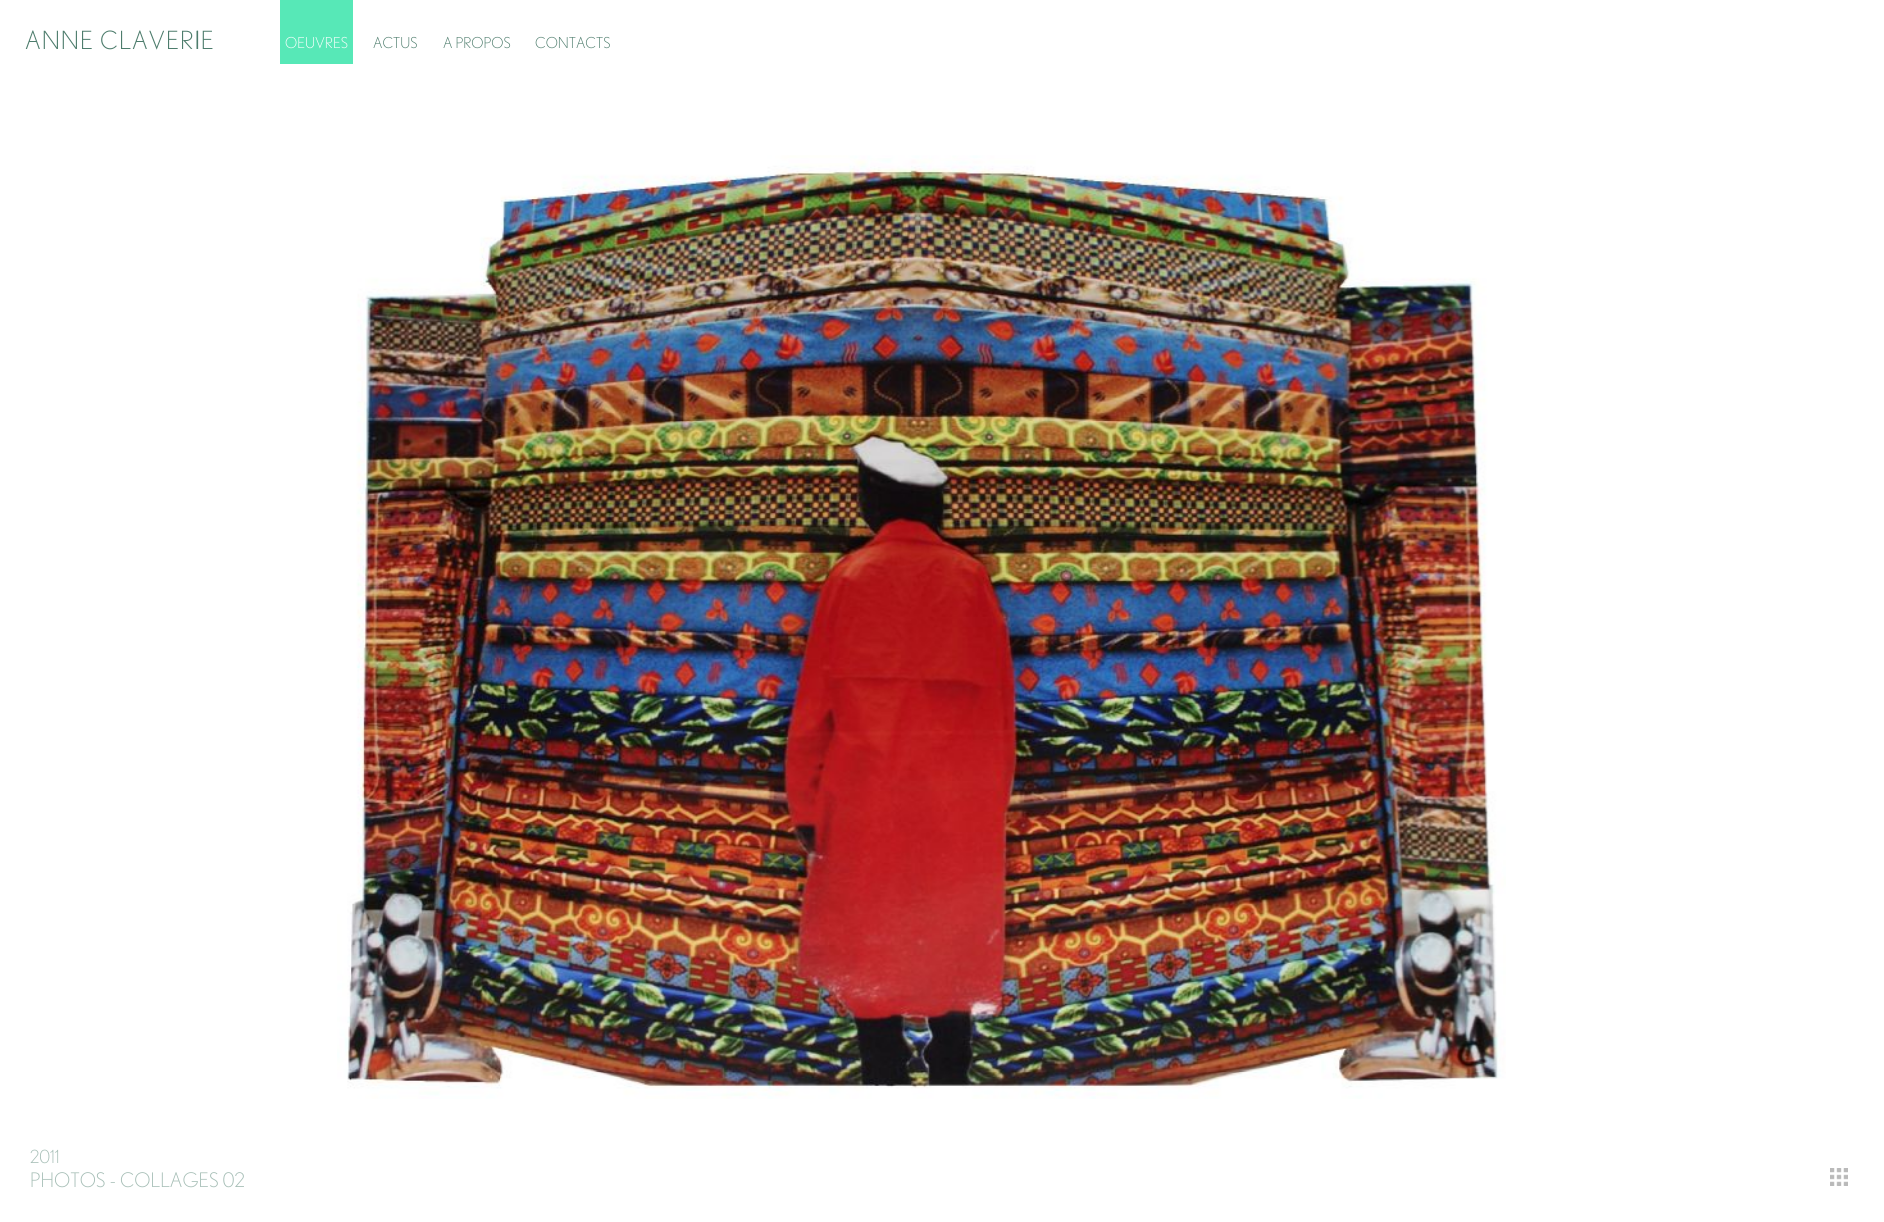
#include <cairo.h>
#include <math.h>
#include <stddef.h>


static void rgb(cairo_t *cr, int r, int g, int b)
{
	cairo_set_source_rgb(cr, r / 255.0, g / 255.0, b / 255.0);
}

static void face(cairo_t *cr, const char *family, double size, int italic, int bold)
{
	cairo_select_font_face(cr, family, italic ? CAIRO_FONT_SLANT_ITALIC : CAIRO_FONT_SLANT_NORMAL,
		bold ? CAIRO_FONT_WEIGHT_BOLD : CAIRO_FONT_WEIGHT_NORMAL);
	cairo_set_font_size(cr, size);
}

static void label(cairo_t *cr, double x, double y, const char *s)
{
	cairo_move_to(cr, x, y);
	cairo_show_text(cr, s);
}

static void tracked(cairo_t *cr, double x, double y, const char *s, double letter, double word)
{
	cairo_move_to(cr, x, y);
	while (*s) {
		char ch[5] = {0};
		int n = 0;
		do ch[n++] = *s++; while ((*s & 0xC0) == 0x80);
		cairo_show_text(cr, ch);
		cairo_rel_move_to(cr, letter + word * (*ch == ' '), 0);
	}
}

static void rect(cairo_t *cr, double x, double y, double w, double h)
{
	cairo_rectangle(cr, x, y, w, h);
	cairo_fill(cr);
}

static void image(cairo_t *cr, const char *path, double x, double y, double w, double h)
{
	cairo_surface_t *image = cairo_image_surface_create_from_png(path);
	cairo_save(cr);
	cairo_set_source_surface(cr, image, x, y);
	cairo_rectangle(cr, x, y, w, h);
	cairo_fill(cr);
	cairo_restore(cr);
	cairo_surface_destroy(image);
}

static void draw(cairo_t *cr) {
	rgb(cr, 255, 255, 255);
	cairo_paint(cr);
	face(cr, "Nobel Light", 25, 0, 0);
	rgb(cr, 77, 124, 108);
	tracked(cr, 25, 49, "ANNE CLAVERIE", 1, 0);
	rgb(cr, 87, 232, 183);
	rect(cr, 280, 0, 73, 64);
	face(cr, "Nobel Light", 15, 0, 0);
	rgb(cr, 255, 255, 255);
	label(cr, 285, 48, "OEUVRES");
	rgb(cr, 77, 124, 108);
	label(cr, 373, 48, "ACTUS");
	label(cr, 443, 48, "A PROPOS");
	label(cr, 535, 48, "CONTACTS");
	face(cr, "Nobel Light", 25, 0, 0);
	tracked(cr, 195, 49, "I", 1, 0);
	image(cr, "image0.png", 337, 155, 1169, 944);
	face(cr, "Nobel Light", 18, 0, 0);
	rgb(cr, 166, 190, 182);
	label(cr, 30, 1163, "2011");
	face(cr, "Nobel Light", 20, 0, 0);
	label(cr, 30, 1187, "PHOTOS - COLLAGES 02");
	image(cr, "image1.png", 1830, 1168, 18, 18);
}

int main(void) {
	cairo_surface_t *surface = cairo_image_surface_create(CAIRO_FORMAT_RGB24, 1884, 1222);
	cairo_t *cr = cairo_create(surface);
	cairo_font_options_t *options = cairo_font_options_create();
	cairo_font_options_set_hint_metrics(options, CAIRO_HINT_METRICS_OFF);
	cairo_font_options_set_hint_style(options, CAIRO_HINT_STYLE_NONE);
	cairo_set_font_options(cr, options);
	cairo_set_miter_limit(cr, 4);
	draw(cr);
	cairo_surface_write_to_png(surface, "render.png");
	cairo_font_options_destroy(options);
	cairo_destroy(cr);
	cairo_surface_destroy(surface);
	return 0;
}
